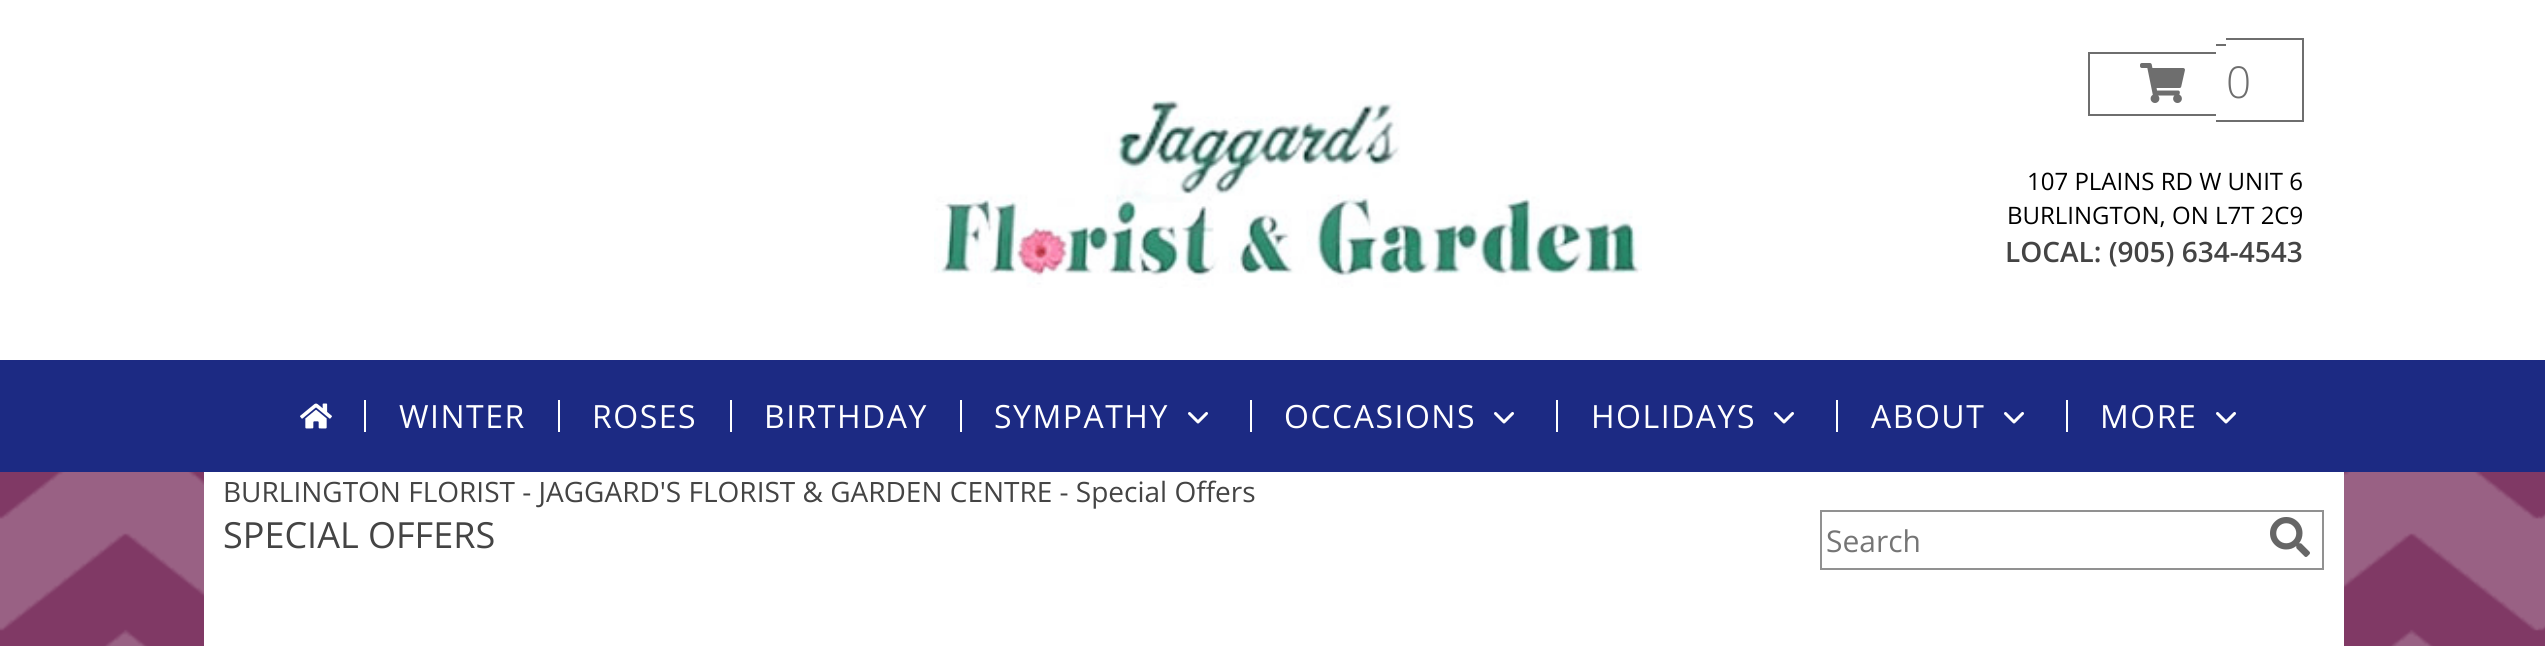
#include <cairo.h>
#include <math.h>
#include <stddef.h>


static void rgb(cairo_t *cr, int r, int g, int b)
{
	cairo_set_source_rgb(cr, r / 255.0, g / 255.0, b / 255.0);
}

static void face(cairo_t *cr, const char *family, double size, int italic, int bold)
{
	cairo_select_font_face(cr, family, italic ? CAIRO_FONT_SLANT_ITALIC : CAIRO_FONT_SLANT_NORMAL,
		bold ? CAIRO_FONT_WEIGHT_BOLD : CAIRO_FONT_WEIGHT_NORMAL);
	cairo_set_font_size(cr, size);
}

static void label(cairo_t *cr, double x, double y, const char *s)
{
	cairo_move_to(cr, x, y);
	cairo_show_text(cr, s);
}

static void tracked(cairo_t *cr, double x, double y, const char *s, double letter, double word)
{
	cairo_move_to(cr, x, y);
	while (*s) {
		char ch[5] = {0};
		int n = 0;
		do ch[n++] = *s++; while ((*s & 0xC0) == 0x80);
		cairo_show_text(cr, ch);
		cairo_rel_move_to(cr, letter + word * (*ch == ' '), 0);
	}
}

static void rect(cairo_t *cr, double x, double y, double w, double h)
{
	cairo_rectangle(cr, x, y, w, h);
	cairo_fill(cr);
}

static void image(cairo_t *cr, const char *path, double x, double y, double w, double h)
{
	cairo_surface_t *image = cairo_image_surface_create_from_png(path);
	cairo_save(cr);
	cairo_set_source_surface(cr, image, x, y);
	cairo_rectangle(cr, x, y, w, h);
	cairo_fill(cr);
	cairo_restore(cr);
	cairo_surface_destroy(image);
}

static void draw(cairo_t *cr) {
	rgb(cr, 128, 57, 101);
	cairo_paint(cr);
	image(cr, "image0.png", 0, 472, 2545, 174);
	rgb(cr, 255, 255, 255);
	rect(cr, 204, 472, 2140, 174);
	rect(cr, 0, 0, 2545, 360);
	image(cr, "image1.png", 934, 100, 708, 188);
	rgb(cr, 110, 110, 110);
	rect(cr, 2088, 52, 128, 2);
	rect(cr, 2088, 114, 128, 2);
	rect(cr, 2088, 52, 2, 64);
	rect(cr, 2216, 44, 10, 2);
	rect(cr, 2216, 120, 10, 2);
	rect(cr, 2226, 38, 78, 2);
	rect(cr, 2302, 38, 2, 84);
	rect(cr, 2226, 120, 78, 2);
	image(cr, "image2.png", 2140, 63, 45, 40);
	face(cr, "Open Sans Light", 44, 0, 0);
	label(cr, 2226, 98, "0");
	face(cr, "Open Sans", 24, 0, 0);
	rgb(cr, 0, 0, 0);
	label(cr, 2027, 190, "107 PLAINS RD W UNIT 6");
	label(cr, 2007, 224, "BURLINGTON, ON L7T 2C9");
	face(cr, "Open Sans SemiBold", 28, 0, 0);
	rgb(cr, 68, 68, 68);
	label(cr, 2005, 262, "LOCAL: (905) 634-4543");
	rgb(cr, 28, 42, 131);
	rect(cr, 0, 360, 2545, 112);
	image(cr, "image3.png", 300, 403, 32, 26);
	rgb(cr, 255, 255, 255);
	rect(cr, 364, 400, 2, 32);
	face(cr, "Open Sans", 32, 0, 0);
	tracked(cr, 399, 428, "WINTER", 1.5, 0);
	rect(cr, 558, 400, 2, 32);
	tracked(cr, 592, 428, "ROSES", 1.5, 0);
	rect(cr, 730, 400, 2, 32);
	tracked(cr, 764, 428, "BIRTHDAY", 1.5, 0);
	rect(cr, 960, 400, 2, 32);
	tracked(cr, 994, 428, "SYMPATHY", 1.5, 0);
	image(cr, "image4.png", 1188, 412, 20, 12);
	rect(cr, 1250, 400, 2, 32);
	tracked(cr, 1284, 428, "OCCASIONS", 1.5, 0);
	image(cr, "image4.png", 1494, 412, 20, 12);
	rect(cr, 1556, 400, 2, 32);
	tracked(cr, 1591, 428, "HOLIDAYS", 1.5, 0);
	image(cr, "image4.png", 1774, 412, 20, 12);
	rect(cr, 1836, 400, 2, 32);
	tracked(cr, 1871, 428, "ABOUT", 1.5, 0);
	image(cr, "image4.png", 2004, 412, 20, 12);
	rect(cr, 2066, 400, 2, 32);
	tracked(cr, 2100, 428, "MORE", 1.5, 0);
	image(cr, "image4.png", 2216, 412, 20, 12);
	face(cr, "Open Sans", 28, 0, 0);
	rgb(cr, 68, 68, 68);
	label(cr, 223, 502, "BURLINGTON FLORIST - JAGGARD'S FLORIST & GARDEN CENTRE - Special Offers");
	face(cr, "Open Sans", 36, 0, 0);
	label(cr, 223, 548, "SPECIAL OFFERS");
	cairo_rectangle(cr, 1821, 511, 502, 58);
	rgb(cr, 145, 145, 145);
	cairo_stroke(cr);
	face(cr, "Open Sans", 30, 0, 0);
	rgb(cr, 117, 117, 117);
	label(cr, 1826, 552, "Search");
	image(cr, "image5.png", 2270, 517, 40, 40);
}

int main(void) {
	cairo_surface_t *surface = cairo_image_surface_create(CAIRO_FORMAT_RGB24, 2545, 646);
	cairo_t *cr = cairo_create(surface);
	cairo_font_options_t *options = cairo_font_options_create();
	cairo_font_options_set_hint_metrics(options, CAIRO_HINT_METRICS_OFF);
	cairo_font_options_set_hint_style(options, CAIRO_HINT_STYLE_NONE);
	cairo_set_font_options(cr, options);
	cairo_set_miter_limit(cr, 4);
	draw(cr);
	cairo_surface_write_to_png(surface, "render.png");
	cairo_font_options_destroy(options);
	cairo_destroy(cr);
	cairo_surface_destroy(surface);
	return 0;
}
